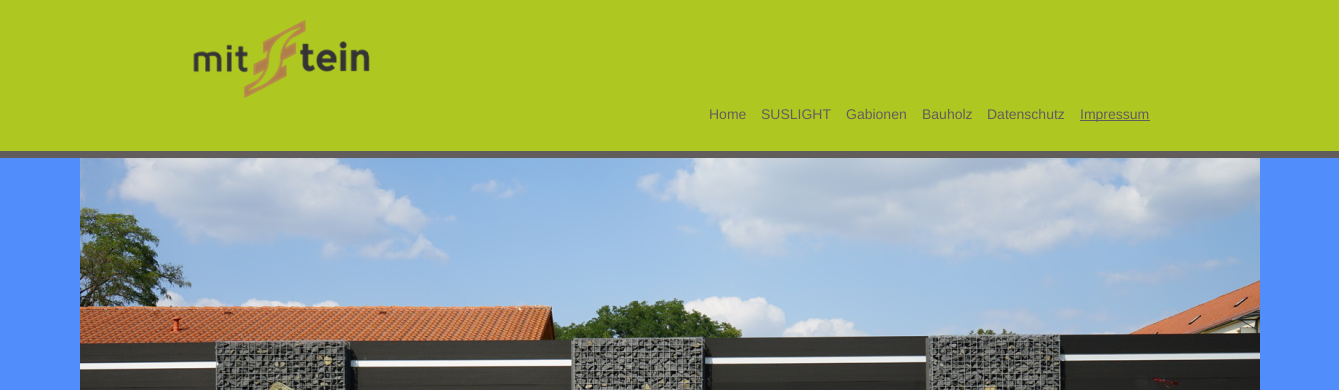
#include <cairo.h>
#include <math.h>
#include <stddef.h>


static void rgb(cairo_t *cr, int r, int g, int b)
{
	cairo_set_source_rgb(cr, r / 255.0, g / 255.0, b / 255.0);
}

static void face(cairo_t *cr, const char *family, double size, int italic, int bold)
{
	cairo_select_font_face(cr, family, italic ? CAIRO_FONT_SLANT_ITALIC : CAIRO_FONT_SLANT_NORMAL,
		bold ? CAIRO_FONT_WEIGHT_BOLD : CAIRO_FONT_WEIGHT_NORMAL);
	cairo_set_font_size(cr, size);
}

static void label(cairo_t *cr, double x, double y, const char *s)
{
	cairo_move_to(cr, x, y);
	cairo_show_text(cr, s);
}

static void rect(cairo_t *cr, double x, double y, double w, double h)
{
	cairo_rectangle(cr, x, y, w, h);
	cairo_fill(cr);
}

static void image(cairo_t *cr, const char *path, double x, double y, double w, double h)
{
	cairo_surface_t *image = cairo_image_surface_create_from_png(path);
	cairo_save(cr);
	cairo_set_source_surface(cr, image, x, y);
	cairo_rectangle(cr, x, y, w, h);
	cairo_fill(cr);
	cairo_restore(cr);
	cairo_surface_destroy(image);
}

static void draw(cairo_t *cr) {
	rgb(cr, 81, 142, 251);
	cairo_paint(cr);
	rgb(cr, 175, 199, 33);
	rect(cr, 0, 0, 1339, 151);
	rgb(cr, 98, 93, 93);
	rect(cr, 0, 151, 1339, 7);
	image(cr, "image0.png", 193, 20, 177, 78);
	face(cr, "Liberation Sans", 14, 0, 0);
	label(cr, 709, 119, "Home");
	label(cr, 761, 119, "SUSLIGHT");
	label(cr, 846, 119, "Gabionen");
	label(cr, 922, 119, "Bauholz");
	label(cr, 987, 119, "Datenschutz");
	rect(cr, 1080, 120, 70, 1);
	label(cr, 1080, 119, "Impressum");
	image(cr, "image1.png", 80, 158, 1180, 232);
}

int main(void) {
	cairo_surface_t *surface = cairo_image_surface_create(CAIRO_FORMAT_RGB24, 1339, 390);
	cairo_t *cr = cairo_create(surface);
	cairo_font_options_t *options = cairo_font_options_create();
	cairo_font_options_set_hint_metrics(options, CAIRO_HINT_METRICS_OFF);
	cairo_font_options_set_hint_style(options, CAIRO_HINT_STYLE_NONE);
	cairo_set_font_options(cr, options);
	cairo_set_miter_limit(cr, 4);
	draw(cr);
	cairo_surface_write_to_png(surface, "render.png");
	cairo_font_options_destroy(options);
	cairo_destroy(cr);
	cairo_surface_destroy(surface);
	return 0;
}
